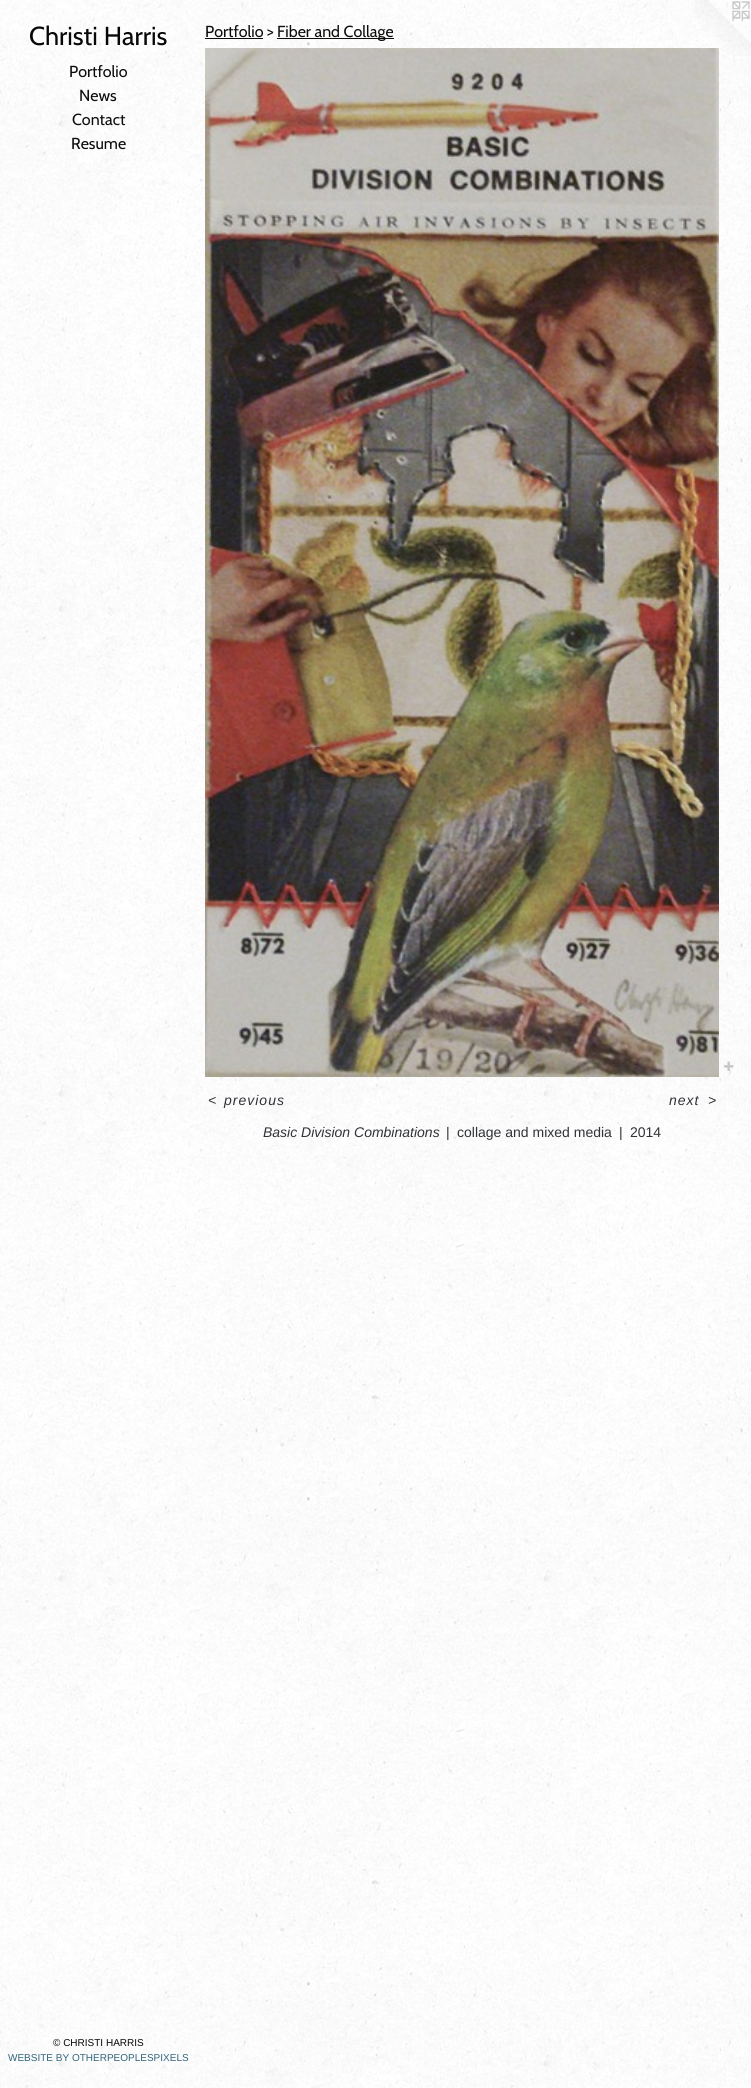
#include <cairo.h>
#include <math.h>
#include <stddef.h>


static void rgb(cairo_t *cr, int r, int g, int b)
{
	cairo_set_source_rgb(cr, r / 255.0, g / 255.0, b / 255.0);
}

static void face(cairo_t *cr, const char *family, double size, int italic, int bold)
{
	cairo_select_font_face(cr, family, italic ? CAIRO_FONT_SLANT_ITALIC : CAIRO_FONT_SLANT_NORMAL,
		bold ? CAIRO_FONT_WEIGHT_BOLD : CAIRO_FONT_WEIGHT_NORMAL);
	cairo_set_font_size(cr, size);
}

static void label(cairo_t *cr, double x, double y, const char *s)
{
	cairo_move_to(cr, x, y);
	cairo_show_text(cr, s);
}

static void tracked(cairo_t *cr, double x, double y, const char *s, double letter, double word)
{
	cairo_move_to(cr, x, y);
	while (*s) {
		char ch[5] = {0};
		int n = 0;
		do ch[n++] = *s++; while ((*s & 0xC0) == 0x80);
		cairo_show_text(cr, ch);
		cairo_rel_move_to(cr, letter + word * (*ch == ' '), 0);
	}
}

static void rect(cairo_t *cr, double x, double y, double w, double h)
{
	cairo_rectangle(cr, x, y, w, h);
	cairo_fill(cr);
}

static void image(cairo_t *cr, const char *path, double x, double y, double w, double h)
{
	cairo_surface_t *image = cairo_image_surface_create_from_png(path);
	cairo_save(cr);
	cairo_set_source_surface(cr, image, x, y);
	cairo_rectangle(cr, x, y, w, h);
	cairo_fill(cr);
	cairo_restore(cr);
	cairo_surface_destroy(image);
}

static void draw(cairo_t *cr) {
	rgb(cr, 255, 255, 255);
	cairo_paint(cr);
	image(cr, "image0.png", 0, 0, 751, 2088);
	face(cr, "Cabin", 26, 0, 0);
	rgb(cr, 8, 7, 7);
	label(cr, 29, 45, "Christi Harris");
	face(cr, "Cabin", 16, 0, 0);
	rgb(cr, 13, 13, 12);
	label(cr, 69, 77, "Portfolio");
	label(cr, 79, 101, "News");
	label(cr, 72, 125, "Contact");
	label(cr, 71, 149, "Resume");
	face(cr, "Liberation Sans", 10, 0, 0);
	rgb(cr, 8, 7, 7);
	label(cr, 53, 2046, "© CHRISTI HARRIS");
	rgb(cr, 49, 102, 124);
	label(cr, 8, 2061, "WEBSITE BY OTHERPEOPLESPIXELS");
	face(cr, "Cabin", 16, 0, 0);
	rgb(cr, 13, 13, 12);
	label(cr, 205, 37, "Portfolio >");
	rect(cr, 205, 38, 58, 1);
	rect(cr, 277, 38, 117, 1);
	label(cr, 277, 37, "Fiber and Collage");
	image(cr, "image3.png", 695, 0, 56, 56);
	image(cr, "image1.png", 205, 48, 514, 1029);
	image(cr, "image2.png", 724, 1061, 10, 10);
	face(cr, "Liberation Sans", 14, 1, 0);
	rgb(cr, 48, 50, 54);
	tracked(cr, 208, 1105, "<", 1, 0);
	tracked(cr, 224, 1105, "previous", 1, 0);
	tracked(cr, 669, 1105, "next", 1, 0);
	tracked(cr, 708, 1105, ">", 1, 0);
	label(cr, 263, 1137, "Basic Division Combinations");
	face(cr, "Liberation Sans", 14, 0, 0);
	label(cr, 446, 1137, "|");
	label(cr, 457, 1137, "collage and mixed media");
	label(cr, 619, 1137, "|");
	label(cr, 630, 1137, "2014");
}

int main(void) {
	cairo_surface_t *surface = cairo_image_surface_create(CAIRO_FORMAT_RGB24, 751, 2088);
	cairo_t *cr = cairo_create(surface);
	cairo_font_options_t *options = cairo_font_options_create();
	cairo_font_options_set_hint_metrics(options, CAIRO_HINT_METRICS_OFF);
	cairo_font_options_set_hint_style(options, CAIRO_HINT_STYLE_NONE);
	cairo_set_font_options(cr, options);
	cairo_set_miter_limit(cr, 4);
	draw(cr);
	cairo_surface_write_to_png(surface, "render.png");
	cairo_font_options_destroy(options);
	cairo_destroy(cr);
	cairo_surface_destroy(surface);
	return 0;
}
